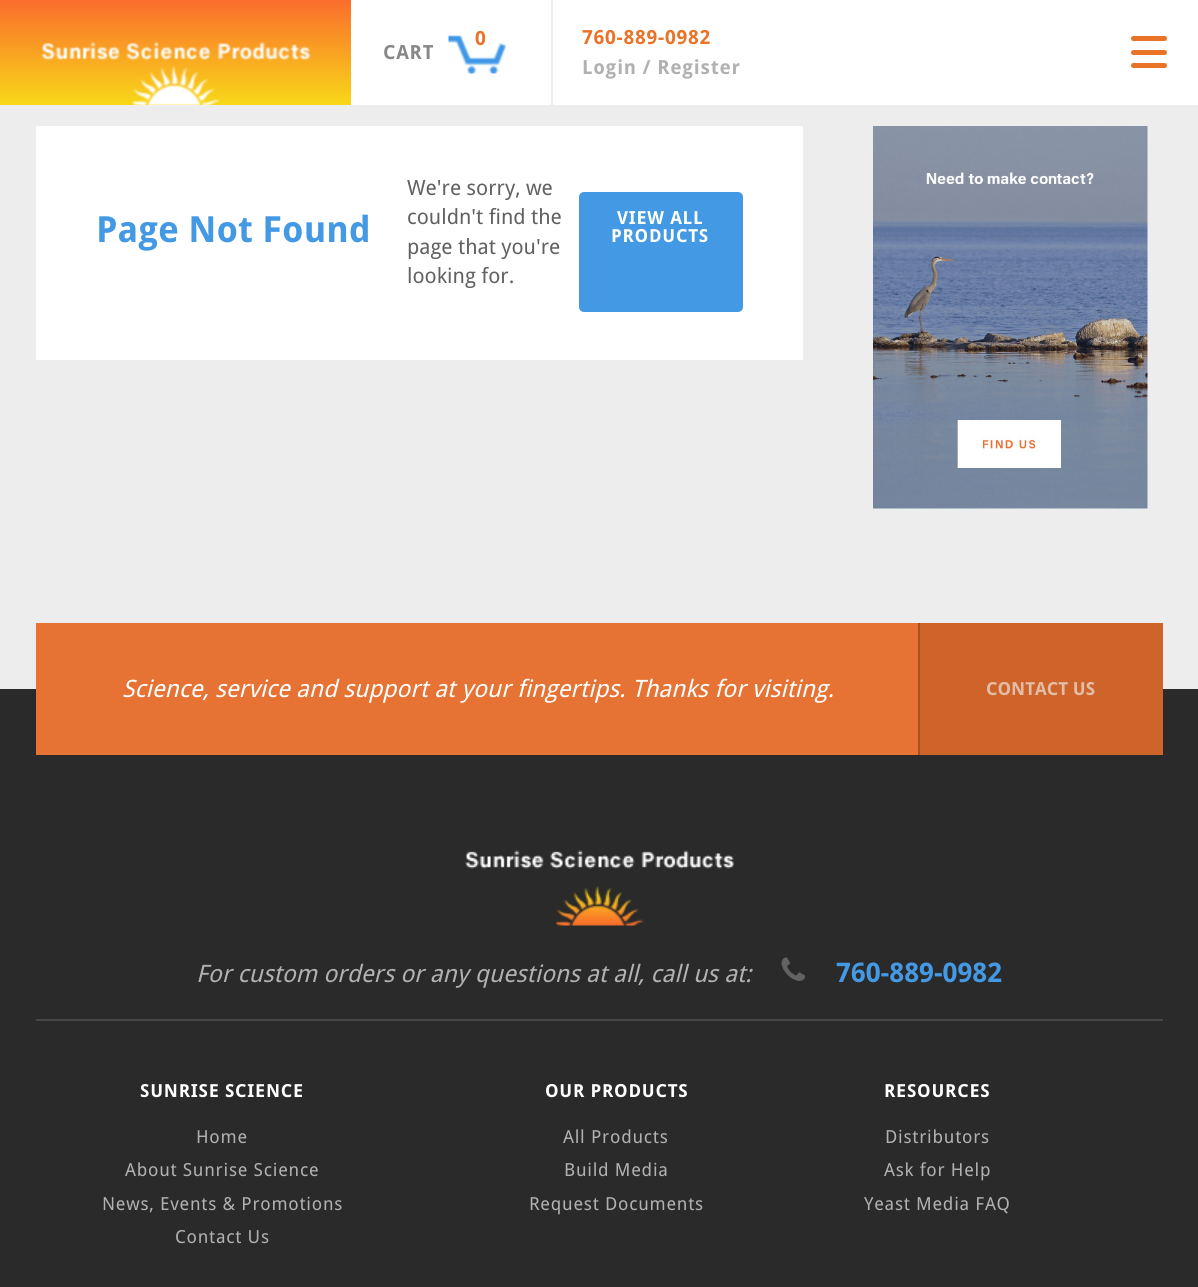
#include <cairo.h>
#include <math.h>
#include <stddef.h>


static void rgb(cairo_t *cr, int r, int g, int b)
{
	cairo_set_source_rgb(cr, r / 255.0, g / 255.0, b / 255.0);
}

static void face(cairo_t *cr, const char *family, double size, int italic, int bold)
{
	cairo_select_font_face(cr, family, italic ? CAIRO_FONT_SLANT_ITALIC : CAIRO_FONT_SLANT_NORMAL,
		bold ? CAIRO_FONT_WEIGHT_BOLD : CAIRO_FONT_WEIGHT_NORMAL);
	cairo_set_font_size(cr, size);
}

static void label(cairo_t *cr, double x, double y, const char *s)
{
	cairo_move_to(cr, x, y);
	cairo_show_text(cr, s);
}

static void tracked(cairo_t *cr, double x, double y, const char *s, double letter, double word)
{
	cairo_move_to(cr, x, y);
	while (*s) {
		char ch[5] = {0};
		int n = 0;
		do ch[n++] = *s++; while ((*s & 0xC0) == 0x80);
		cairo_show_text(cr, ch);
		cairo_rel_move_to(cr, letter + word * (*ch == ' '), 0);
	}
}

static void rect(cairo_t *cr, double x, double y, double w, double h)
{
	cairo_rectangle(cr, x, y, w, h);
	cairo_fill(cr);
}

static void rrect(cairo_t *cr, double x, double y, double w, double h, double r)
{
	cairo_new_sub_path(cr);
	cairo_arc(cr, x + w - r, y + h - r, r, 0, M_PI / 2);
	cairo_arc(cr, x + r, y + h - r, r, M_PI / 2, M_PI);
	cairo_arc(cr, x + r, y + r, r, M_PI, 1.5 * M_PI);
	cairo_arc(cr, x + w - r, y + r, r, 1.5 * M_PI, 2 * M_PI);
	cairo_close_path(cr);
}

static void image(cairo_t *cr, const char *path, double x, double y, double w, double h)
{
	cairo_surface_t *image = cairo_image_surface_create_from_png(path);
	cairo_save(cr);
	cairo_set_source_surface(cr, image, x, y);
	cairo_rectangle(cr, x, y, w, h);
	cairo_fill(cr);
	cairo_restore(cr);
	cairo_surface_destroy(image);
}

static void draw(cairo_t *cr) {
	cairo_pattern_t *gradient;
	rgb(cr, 237, 237, 237);
	cairo_paint(cr);
	rgb(cr, 255, 255, 255);
	rect(cr, 351, 0, 847, 105);
	gradient = cairo_pattern_create_linear(176, 0, 176, 105);
	cairo_pattern_add_color_stop_rgba(gradient, 0, 0.98, 0.427, 0.173, 1);
	cairo_pattern_add_color_stop_rgba(gradient, 1, 0.973, 0.847, 0.094, 1);
	cairo_set_source(cr, gradient);
	cairo_pattern_destroy(gradient);
	rect(cr, 0, 0, 351, 105);
	image(cr, "image0.png", 41, 41, 270, 65);
	rgb(cr, 238, 238, 238);
	rect(cr, 551, 0, 2, 105);
	image(cr, "image1.png", 448, 35, 58, 39);
	face(cr, "Droid Sans", 19.5, 0, 1);
	rgb(cr, 234, 115, 39);
	tracked(cr, 475, 45, "0", 0.75, 0);
	rgb(cr, 136, 136, 136);
	tracked(cr, 383, 59, "CART", 0.75, 0);
	rgb(cr, 234, 115, 39);
	tracked(cr, 582, 44, "760-889-0982", 0.75, 0);
	rgb(cr, 177, 177, 177);
	tracked(cr, 582, 74, "Login / Register", 0.75, 0);
	rgb(cr, 234, 115, 39);
	rrect(cr, 1131, 50, 36, 5, 2.5);
	cairo_fill(cr);
	rrect(cr, 1131, 36, 36, 5, 2.5);
	cairo_fill(cr);
	rrect(cr, 1131, 63, 36, 5, 2.5);
	cairo_fill(cr);
	rgb(cr, 255, 255, 255);
	rect(cr, 36, 126, 767, 234);
	face(cr, "Droid Sans", 36, 0, 1);
	rgb(cr, 68, 153, 228);
	label(cr, 96, 242, "Page Not Found");
	face(cr, "Droid Sans", 21, 0, 0);
	rgb(cr, 97, 97, 97);
	label(cr, 407, 195, "We're sorry, we");
	label(cr, 407, 224, "couldn't find the");
	label(cr, 407, 254, "page that you're");
	label(cr, 407, 283, "looking for.");
	rgb(cr, 68, 153, 228);
	rrect(cr, 579, 192, 164, 120, 5);
	cairo_fill(cr);
	face(cr, "Droid Sans", 18, 0, 1);
	rgb(cr, 255, 255, 255);
	tracked(cr, 617, 224, "VIEW ALL", 0.75, 0);
	tracked(cr, 611, 242, "PRODUCTS", 0.75, 0);
	image(cr, "image2.png", 873, 126, 275, 383);
	rgb(cr, 42, 42, 42);
	rect(cr, 0, 689, 1198, 598);
	rgb(cr, 230, 114, 51);
	rect(cr, 36, 623, 882, 132);
	face(cr, "Droid Sans", 24, 1, 0);
	rgb(cr, 255, 255, 255);
	label(cr, 122, 697, "Science, service and support at your fingertips. Thanks for visiting.");
	rgb(cr, 206, 100, 42);
	rect(cr, 920, 623, 243, 132);
	rgb(cr, 170, 80, 32);
	rect(cr, 918, 623, 2, 132);
	face(cr, "Droid Sans", 18, 0, 1);
	rgb(cr, 226, 190, 168);
	label(cr, 986, 695, "CONTACT US");
	rgb(cr, 70, 70, 70);
	rect(cr, 36, 1019, 1127, 2);
	image(cr, "image3.png", 465, 850, 269, 76);
	face(cr, "Droid Sans", 24, 1, 0);
	rgb(cr, 177, 177, 177);
	label(cr, 196, 982, "For custom orders or any questions at all, call us at:");
	image(cr, "image4.png", 781, 957, 24, 24);
	face(cr, "Droid Sans", 27, 0, 1);
	rgb(cr, 68, 153, 228);
	label(cr, 836, 982, "760-889-0982");
	face(cr, "Droid Sans", 18, 0, 1);
	rgb(cr, 255, 255, 255);
	tracked(cr, 140, 1097, "SUNRISE SCIENCE", 0.75, 0);
	face(cr, "Droid Sans", 18, 0, 0);
	rgb(cr, 177, 177, 177);
	tracked(cr, 196, 1143, "Home", 0.75, 0);
	tracked(cr, 125, 1176, "About Sunrise Science", 0.75, 0);
	tracked(cr, 102, 1210, "News, Events & Promotions", 0.75, 0);
	tracked(cr, 175, 1243, "Contact Us", 0.75, 0);
	face(cr, "Droid Sans", 18, 0, 1);
	rgb(cr, 255, 255, 255);
	tracked(cr, 545, 1097, "OUR PRODUCTS", 0.75, 0);
	face(cr, "Droid Sans", 18, 0, 0);
	rgb(cr, 177, 177, 177);
	tracked(cr, 563, 1143, "All Products", 0.75, 0);
	tracked(cr, 564, 1176, "Build Media", 0.75, 0);
	tracked(cr, 529, 1210, "Request Documents", 0.75, 0);
	face(cr, "Droid Sans", 18, 0, 1);
	rgb(cr, 255, 255, 255);
	tracked(cr, 884, 1097, "RESOURCES", 0.75, 0);
	face(cr, "Droid Sans", 18, 0, 0);
	rgb(cr, 177, 177, 177);
	tracked(cr, 885, 1143, "Distributors", 0.75, 0);
	tracked(cr, 884, 1176, "Ask for Help", 0.75, 0);
	tracked(cr, 864, 1210, "Yeast Media FAQ", 0.75, 0);
}

int main(void) {
	cairo_surface_t *surface = cairo_image_surface_create(CAIRO_FORMAT_RGB24, 1198, 1287);
	cairo_t *cr = cairo_create(surface);
	cairo_font_options_t *options = cairo_font_options_create();
	cairo_font_options_set_hint_metrics(options, CAIRO_HINT_METRICS_OFF);
	cairo_font_options_set_hint_style(options, CAIRO_HINT_STYLE_NONE);
	cairo_set_font_options(cr, options);
	cairo_set_miter_limit(cr, 4);
	draw(cr);
	cairo_surface_write_to_png(surface, "render.png");
	cairo_font_options_destroy(options);
	cairo_destroy(cr);
	cairo_surface_destroy(surface);
	return 0;
}
